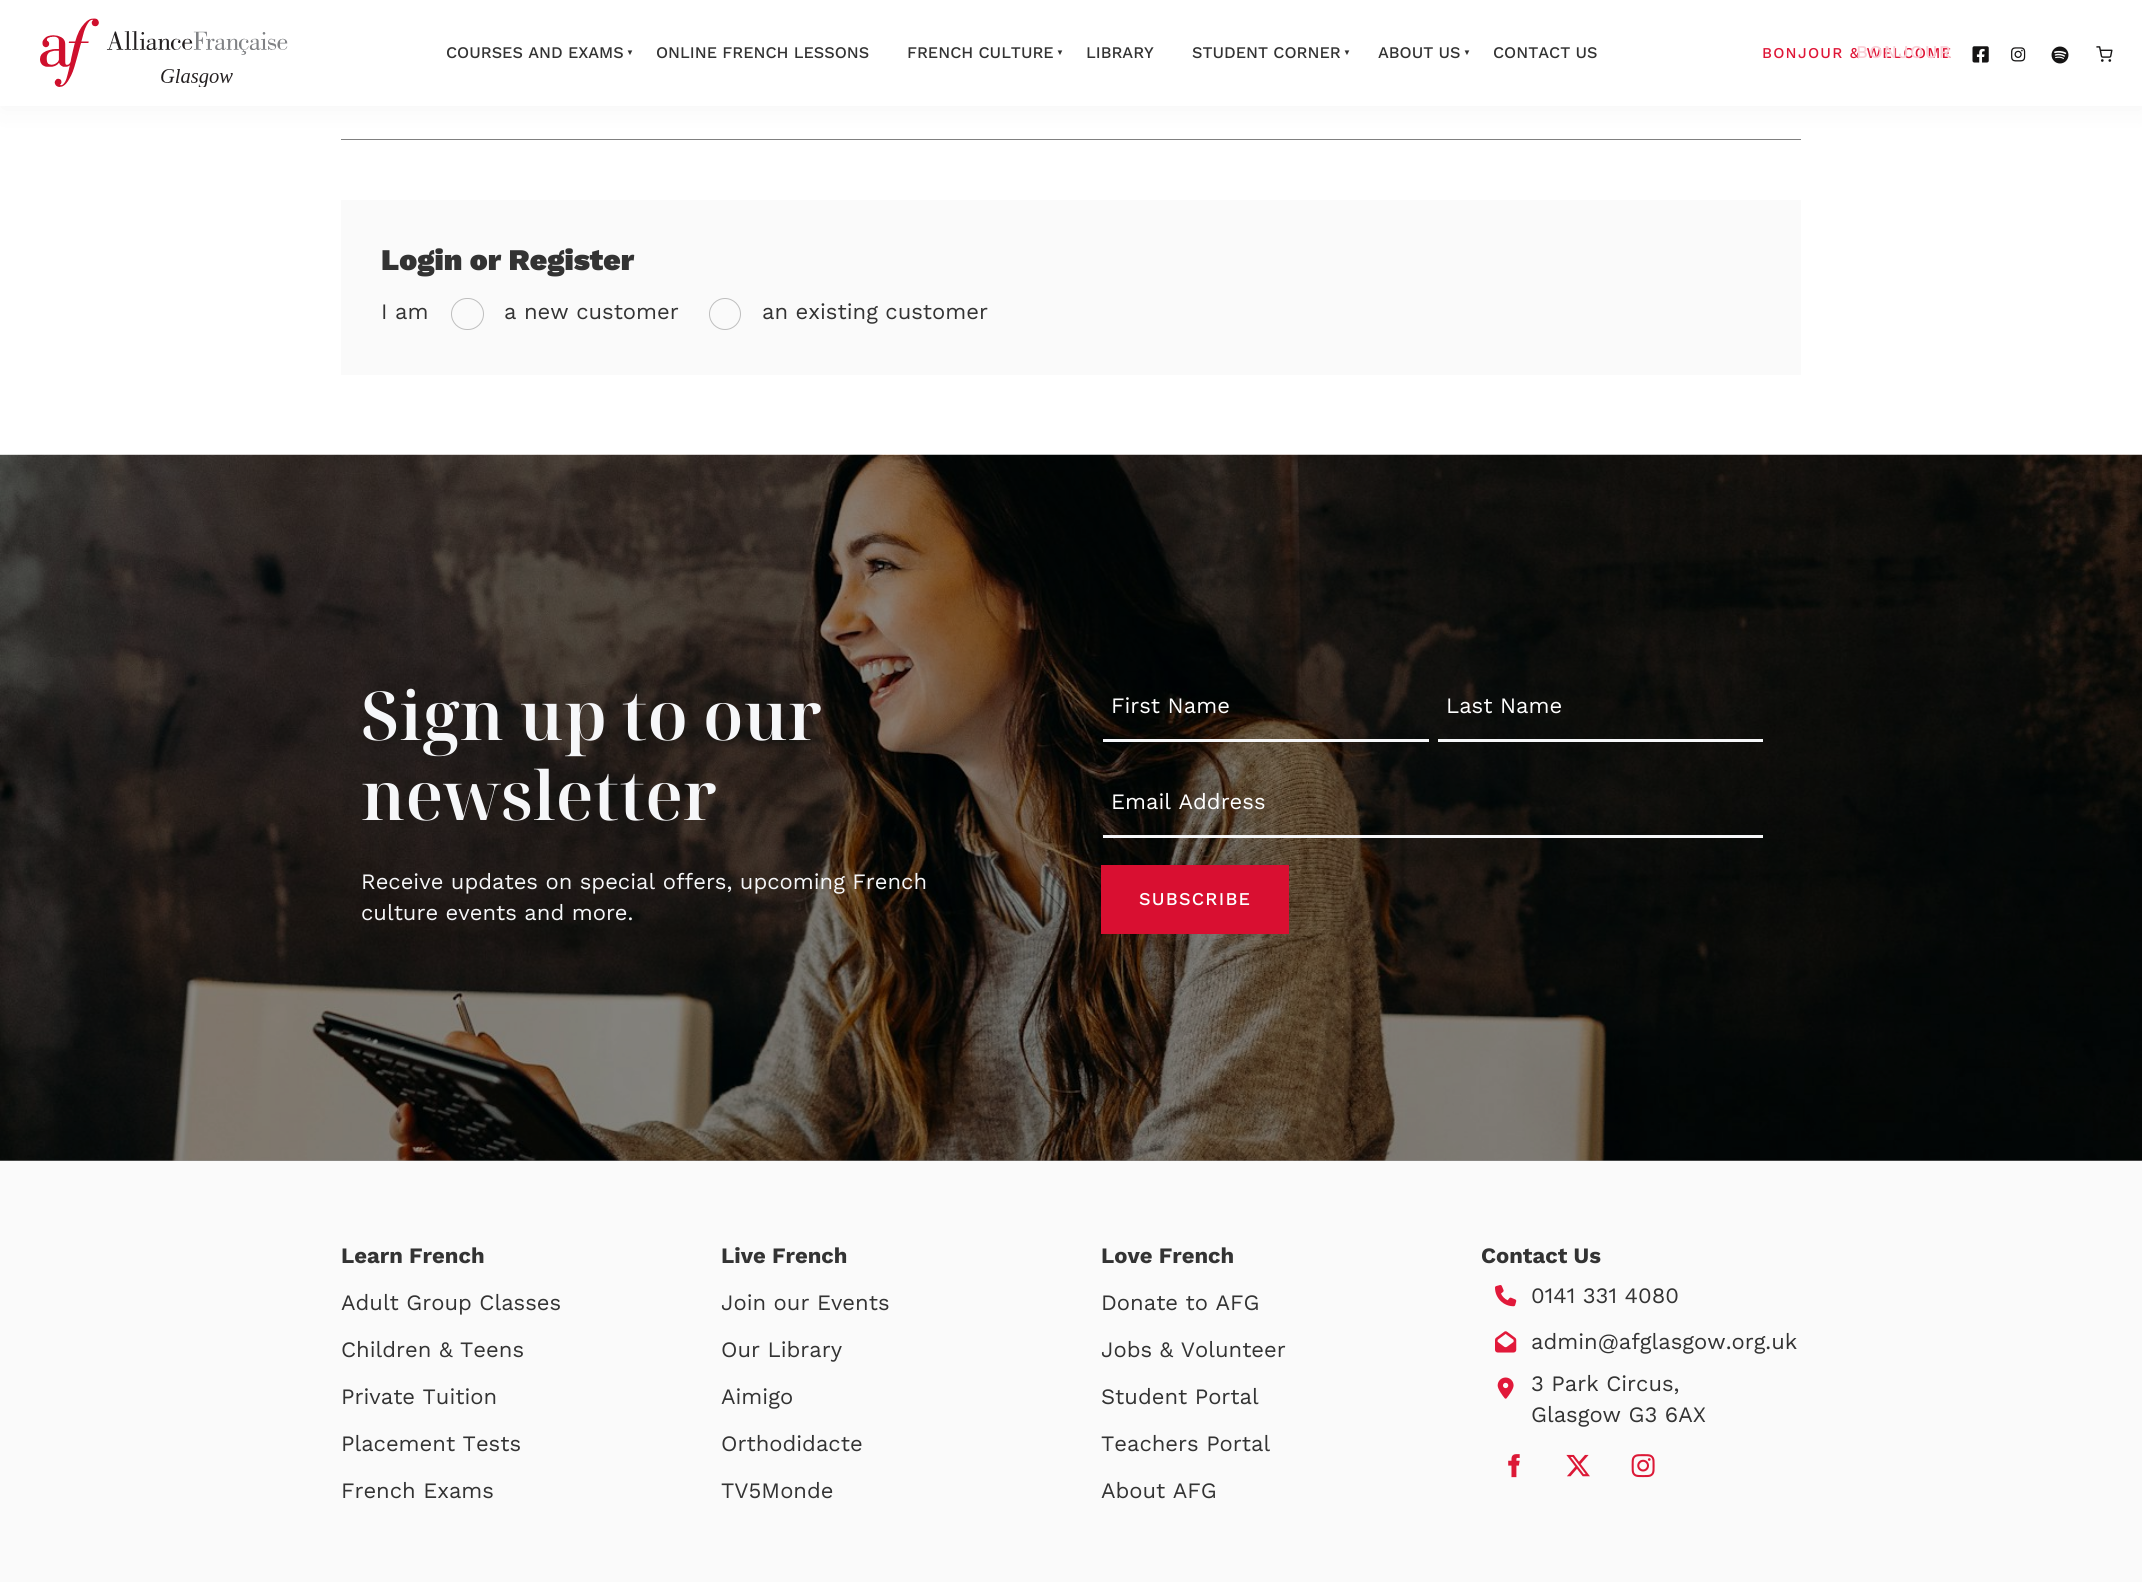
#include <cairo.h>
#include <math.h>
#include <stddef.h>


static void rgb(cairo_t *cr, int r, int g, int b)
{
	cairo_set_source_rgb(cr, r / 255.0, g / 255.0, b / 255.0);
}

static void face(cairo_t *cr, const char *family, double size, int italic, int bold)
{
	cairo_select_font_face(cr, family, italic ? CAIRO_FONT_SLANT_ITALIC : CAIRO_FONT_SLANT_NORMAL,
		bold ? CAIRO_FONT_WEIGHT_BOLD : CAIRO_FONT_WEIGHT_NORMAL);
	cairo_set_font_size(cr, size);
}

static void label(cairo_t *cr, double x, double y, const char *s)
{
	cairo_move_to(cr, x, y);
	cairo_show_text(cr, s);
}

static void tracked(cairo_t *cr, double x, double y, const char *s, double letter, double word)
{
	cairo_move_to(cr, x, y);
	while (*s) {
		char ch[5] = {0};
		int n = 0;
		do ch[n++] = *s++; while ((*s & 0xC0) == 0x80);
		cairo_show_text(cr, ch);
		cairo_rel_move_to(cr, letter + word * (*ch == ' '), 0);
	}
}

static void rect(cairo_t *cr, double x, double y, double w, double h)
{
	cairo_rectangle(cr, x, y, w, h);
	cairo_fill(cr);
}

static void rrect(cairo_t *cr, double x, double y, double w, double h, double r)
{
	cairo_new_sub_path(cr);
	cairo_arc(cr, x + w - r, y + h - r, r, 0, M_PI / 2);
	cairo_arc(cr, x + r, y + h - r, r, M_PI / 2, M_PI);
	cairo_arc(cr, x + r, y + r, r, M_PI, 1.5 * M_PI);
	cairo_arc(cr, x + w - r, y + r, r, 1.5 * M_PI, 2 * M_PI);
	cairo_close_path(cr);
}

static void soft_shadow(cairo_t *cr, double x, double y, double w, double h, double r, double blur, double alpha)
{
	cairo_push_group_with_content(cr, CAIRO_CONTENT_ALPHA);
	cairo_set_operator(cr, CAIRO_OPERATOR_SOURCE);
	for (int i = 15; i >= -15 && fmin(w, h) + blur * i / 3 > 0; i -= 2) {
		double e = blur * i / 6;
		cairo_set_source_rgba(cr, 0, 0, 0, alpha * erfc((i - 1) / 8.5) / 2);
		rrect(cr, x - e, y - e, w + 2 * e, h + 2 * e, fmax(0, fmin(r + e + blur * .6, fmin(w, h) / 2 + e)));
		cairo_fill(cr);
	}
	cairo_pattern_t *soft = cairo_pop_group(cr);
	cairo_mask(cr, soft);
	cairo_pattern_destroy(soft);
}

static void image(cairo_t *cr, const char *path, double x, double y, double w, double h)
{
	cairo_surface_t *image = cairo_image_surface_create_from_png(path);
	cairo_save(cr);
	cairo_set_source_surface(cr, image, x, y);
	cairo_rectangle(cr, x, y, w, h);
	cairo_fill(cr);
	cairo_restore(cr);
	cairo_surface_destroy(image);
}

static void draw(cairo_t *cr) {
	rgb(cr, 255, 255, 255);
	cairo_paint(cr);
	rgb(cr, 153, 153, 153);
	rect(cr, 0, 1160, 2142, 1);
	rgb(cr, 128, 128, 128);
	rect(cr, 341, 139, 1460, 1);
	rgb(cr, 51, 51, 51);
	soft_shadow(cr, 1, 3, 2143, 106, 0, 12.5, 0.05);
	rgb(cr, 255, 255, 255);
	rect(cr, 0, 0, 2142, 106);
	image(cr, "image0.png", 40, 18, 248, 69);
	face(cr, "Work Sans Medium", 16.25, 0, 0);
	rgb(cr, 51, 51, 51);
	label(cr, 446, 58, "COURSES AND EXAMS");
	face(cr, "Liberation Sans", 8, 0, 0);
	label(cr, 626, 55, "▼");
	face(cr, "Work Sans Medium", 16.25, 0, 0);
	label(cr, 656, 58, "ONLINE FRENCH LESSONS");
	label(cr, 907, 58, "FRENCH CULTURE");
	face(cr, "Liberation Sans", 8, 0, 0);
	label(cr, 1056, 55, "▼");
	face(cr, "Work Sans Medium", 16.25, 0, 0);
	label(cr, 1086, 58, "LIBRARY");
	label(cr, 1192, 58, "STUDENT CORNER");
	face(cr, "Liberation Sans", 8, 0, 0);
	label(cr, 1343, 55, "▼");
	face(cr, "Work Sans Medium", 16.25, 0, 0);
	label(cr, 1378, 58, "ABOUT US");
	face(cr, "Liberation Sans", 8, 0, 0);
	label(cr, 1463, 55, "▼");
	face(cr, "Work Sans Medium", 16.25, 0, 0);
	label(cr, 1493, 58, "CONTACT US");
	face(cr, "Work Sans Medium", 15, 0, 0);
	rgb(cr, 223, 22, 55);
	tracked(cr, 1762, 58, "BONJOUR & WELCOME", 1.25, 0);
	face(cr, "Work Sans Medium", 18, 0, 0);
	rgb(cr, 249, 208, 215);
	tracked(cr, 1856, 58, "BONJOUR", 1.25, 0);
	image(cr, "image1.png", 1972, 46, 17, 17);
	image(cr, "image2.png", 2011, 47, 15, 15);
	image(cr, "image3.png", 2051, 46, 18, 18);
	image(cr, "image4.png", 2096, 46, 17, 16);
	rgb(cr, 250, 250, 250);
	rect(cr, 341, 200, 1460, 175);
	face(cr, "Work Sans Black", 30, 0, 0);
	rgb(cr, 51, 51, 51);
	label(cr, 381, 270, "Login or Register");
	face(cr, "Work Sans", 22, 0, 0);
	label(cr, 381, 319, "I am");
	rrect(cr, 451.5, 298.5, 32, 31, 15.5);
	rgb(cr, 190, 190, 190);
	cairo_set_line_width(cr, 1);
	cairo_stroke(cr);
	rgb(cr, 51, 51, 51);
	label(cr, 504, 319, "a new customer");
	cairo_new_path(cr);
	cairo_arc(cr, 725, 314, 15.5, 0, 2 * M_PI);
	rgb(cr, 190, 190, 190);
	cairo_stroke(cr);
	rgb(cr, 51, 51, 51);
	label(cr, 762, 319, "an existing customer");
	image(cr, "image5.png", 0, 454, 2142, 707);
	face(cr, "Noto Serif Display SemiBold", 67.5, 0, 0);
	rgb(cr, 246, 247, 249);
	label(cr, 361, 740, "Sign up to our");
	label(cr, 361, 820, "newsletter");
	face(cr, "Work Sans", 22, 0, 0);
	label(cr, 361, 889, "Receive updates on special offers, upcoming French");
	label(cr, 361, 920, "culture events and more.");
	rect(cr, 1103, 739, 326, 3);
	rgb(cr, 255, 255, 255);
	label(cr, 1111, 713, "First Name");
	rgb(cr, 246, 247, 249);
	rect(cr, 1438, 739, 325, 3);
	rgb(cr, 255, 255, 255);
	label(cr, 1446, 713, "Last Name");
	rgb(cr, 246, 247, 249);
	rect(cr, 1103, 835, 660, 3);
	rgb(cr, 255, 255, 255);
	label(cr, 1111, 809, "Email Address");
	rgb(cr, 217, 15, 49);
	rect(cr, 1101, 865, 188, 69);
	face(cr, "Work Sans Medium", 18, 0, 0);
	rgb(cr, 255, 255, 255);
	tracked(cr, 1139, 905, "SUBSCRIBE", 1.25, 0);
	rgb(cr, 250, 250, 250);
	rect(cr, 0, 1161, 2142, 421);
	face(cr, "Work Sans", 22, 0, 1);
	rgb(cr, 51, 51, 51);
	label(cr, 341, 1263, "Learn French");
	face(cr, "Work Sans", 22, 0, 0);
	label(cr, 341, 1310, "Adult Group Classes");
	label(cr, 341, 1357, "Children & Teens");
	label(cr, 341, 1404, "Private Tuition");
	label(cr, 341, 1451, "Placement Tests");
	label(cr, 341, 1498, "French Exams");
	face(cr, "Work Sans", 22, 0, 1);
	label(cr, 721, 1263, "Live French");
	face(cr, "Work Sans", 22, 0, 0);
	label(cr, 721, 1310, "Join our Events");
	label(cr, 721, 1357, "Our Library");
	label(cr, 721, 1404, "Aimigo");
	label(cr, 721, 1451, "Orthodidacte");
	label(cr, 721, 1498, "TV5Monde");
	face(cr, "Work Sans", 22, 0, 1);
	label(cr, 1101, 1263, "Love French");
	face(cr, "Work Sans", 22, 0, 0);
	label(cr, 1101, 1310, "Donate to AFG");
	label(cr, 1101, 1357, "Jobs & Volunteer");
	label(cr, 1101, 1404, "Student Portal");
	label(cr, 1101, 1451, "Teachers Portal");
	label(cr, 1101, 1498, "About AFG");
	face(cr, "Work Sans", 22, 0, 1);
	label(cr, 1481, 1263, "Contact Us");
	image(cr, "image6.png", 1495, 1285, 22, 22);
	face(cr, "Work Sans", 22, 0, 0);
	label(cr, 1531, 1303, "0141 331 4080");
	image(cr, "image7.png", 1495, 1331, 22, 22);
	label(cr, 1531, 1349, "admin@afglasgow.org.uk");
	image(cr, "image8.png", 1497, 1377, 17, 22);
	label(cr, 1531, 1391, "3 Park Circus,");
	label(cr, 1531, 1422, "Glasgow G3 6AX");
	image(cr, "image9.png", 1508, 1454, 12, 24);
	image(cr, "image10.png", 1566, 1454, 24, 23);
	image(cr, "image11.png", 1631, 1454, 24, 24);
}

int main(void) {
	cairo_surface_t *surface = cairo_image_surface_create(CAIRO_FORMAT_RGB24, 2142, 1582);
	cairo_t *cr = cairo_create(surface);
	cairo_font_options_t *options = cairo_font_options_create();
	cairo_font_options_set_hint_metrics(options, CAIRO_HINT_METRICS_OFF);
	cairo_font_options_set_hint_style(options, CAIRO_HINT_STYLE_NONE);
	cairo_set_font_options(cr, options);
	cairo_set_miter_limit(cr, 4);
	draw(cr);
	cairo_surface_write_to_png(surface, "render.png");
	cairo_font_options_destroy(options);
	cairo_destroy(cr);
	cairo_surface_destroy(surface);
	return 0;
}
